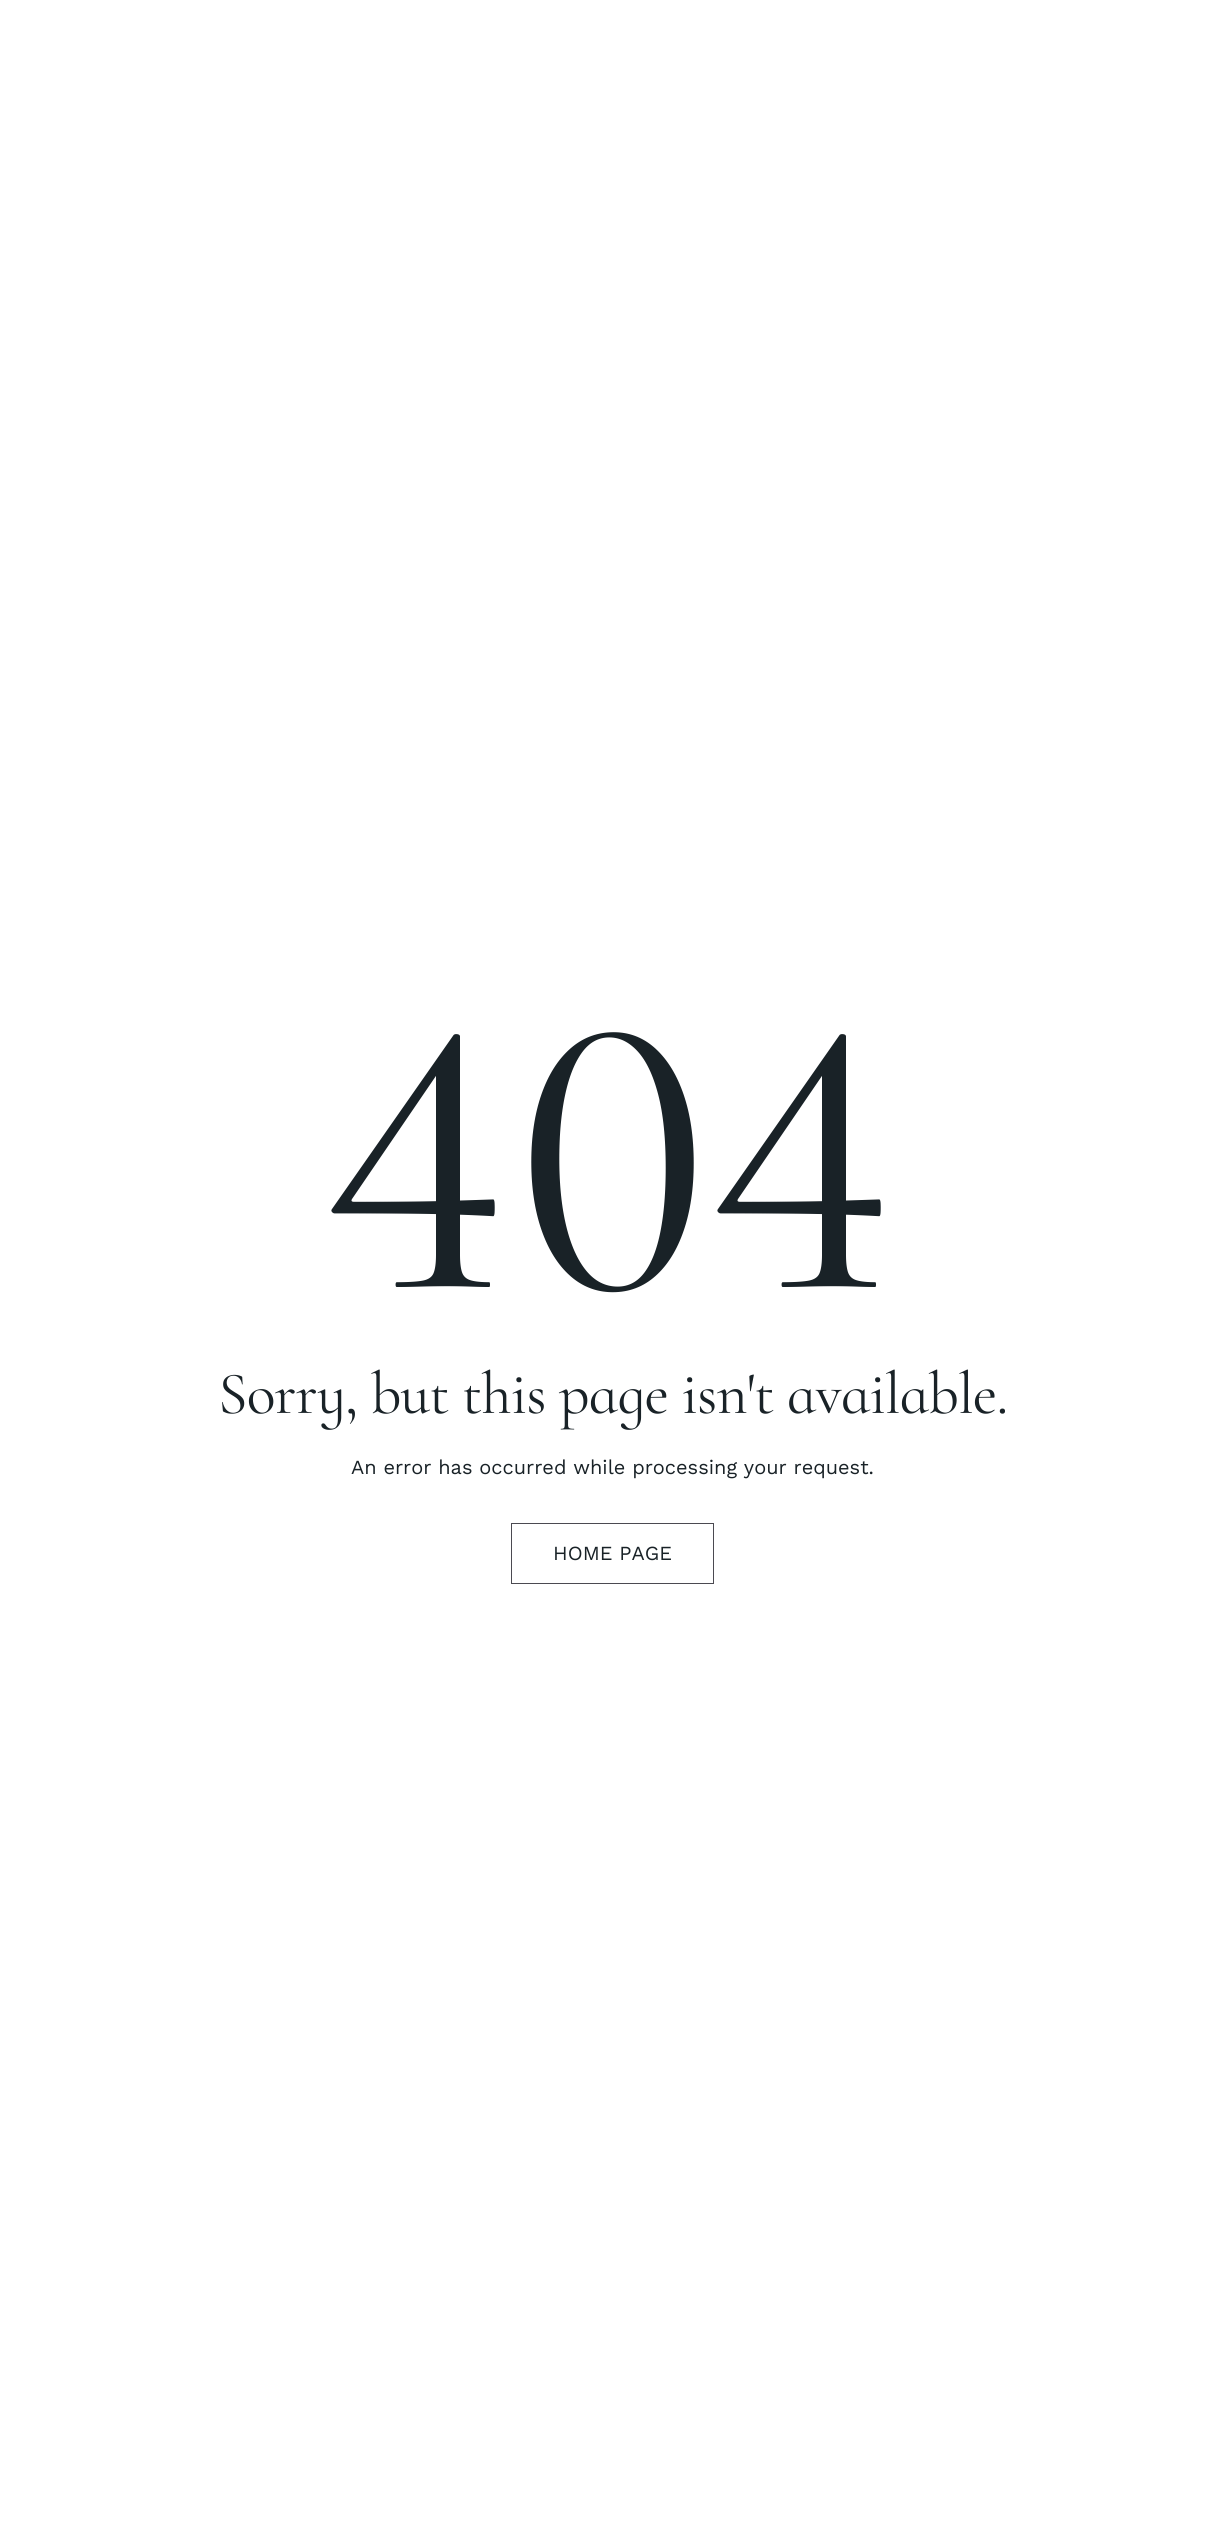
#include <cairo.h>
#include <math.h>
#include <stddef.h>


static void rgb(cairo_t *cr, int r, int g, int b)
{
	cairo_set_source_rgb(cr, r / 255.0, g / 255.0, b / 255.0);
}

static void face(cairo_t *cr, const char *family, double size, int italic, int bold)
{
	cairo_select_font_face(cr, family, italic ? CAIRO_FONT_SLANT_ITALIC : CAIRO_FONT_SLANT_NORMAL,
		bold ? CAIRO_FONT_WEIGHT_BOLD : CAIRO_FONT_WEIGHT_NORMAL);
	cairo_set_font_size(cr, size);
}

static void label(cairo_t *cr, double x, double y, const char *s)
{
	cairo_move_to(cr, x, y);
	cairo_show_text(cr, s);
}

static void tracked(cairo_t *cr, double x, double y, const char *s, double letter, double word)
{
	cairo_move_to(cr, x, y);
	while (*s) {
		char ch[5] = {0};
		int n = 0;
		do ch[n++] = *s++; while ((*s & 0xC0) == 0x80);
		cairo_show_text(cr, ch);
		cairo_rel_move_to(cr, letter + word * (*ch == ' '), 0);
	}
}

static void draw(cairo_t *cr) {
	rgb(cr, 255, 255, 255);
	cairo_paint(cr);
	face(cr, "Cormorant Infant", 400, 0, 0);
	rgb(cr, 25, 34, 39);
	tracked(cr, 326, 1287, "404", -1, 0);
	face(cr, "Cormorant Infant", 60, 0, 0);
	tracked(cr, 218, 1413, "Sorry, but this page isn't available.", -0.8, 0);
	face(cr, "Work Sans", 20, 0, 0);
	label(cr, 351, 1474, "An error has occurred while processing your request.");
	cairo_rectangle(cr, 511.5, 1523.5, 202, 60);
	rgb(cr, 75, 74, 81);
	cairo_set_line_width(cr, 1);
	cairo_stroke(cr);
	rgb(cr, 25, 34, 39);
	label(cr, 553, 1560, "HOME PAGE");
}

int main(void) {
	cairo_surface_t *surface = cairo_image_surface_create(CAIRO_FORMAT_RGB24, 1225, 2542);
	cairo_t *cr = cairo_create(surface);
	cairo_font_options_t *options = cairo_font_options_create();
	cairo_font_options_set_hint_metrics(options, CAIRO_HINT_METRICS_OFF);
	cairo_font_options_set_hint_style(options, CAIRO_HINT_STYLE_NONE);
	cairo_set_font_options(cr, options);
	cairo_set_miter_limit(cr, 4);
	draw(cr);
	cairo_surface_write_to_png(surface, "render.png");
	cairo_font_options_destroy(options);
	cairo_destroy(cr);
	cairo_surface_destroy(surface);
	return 0;
}
